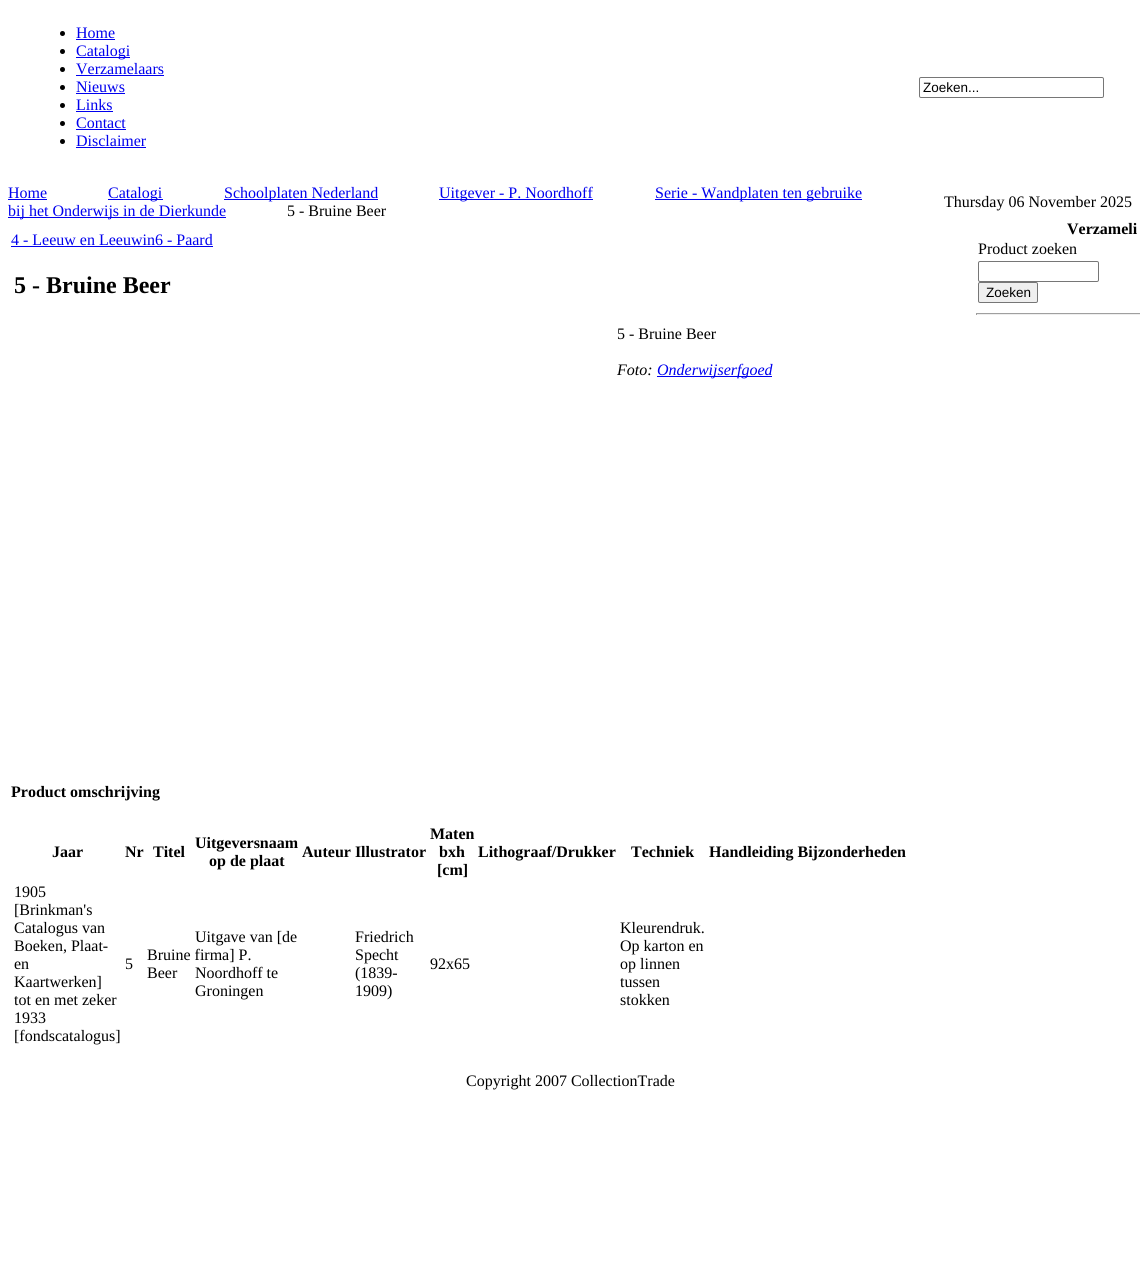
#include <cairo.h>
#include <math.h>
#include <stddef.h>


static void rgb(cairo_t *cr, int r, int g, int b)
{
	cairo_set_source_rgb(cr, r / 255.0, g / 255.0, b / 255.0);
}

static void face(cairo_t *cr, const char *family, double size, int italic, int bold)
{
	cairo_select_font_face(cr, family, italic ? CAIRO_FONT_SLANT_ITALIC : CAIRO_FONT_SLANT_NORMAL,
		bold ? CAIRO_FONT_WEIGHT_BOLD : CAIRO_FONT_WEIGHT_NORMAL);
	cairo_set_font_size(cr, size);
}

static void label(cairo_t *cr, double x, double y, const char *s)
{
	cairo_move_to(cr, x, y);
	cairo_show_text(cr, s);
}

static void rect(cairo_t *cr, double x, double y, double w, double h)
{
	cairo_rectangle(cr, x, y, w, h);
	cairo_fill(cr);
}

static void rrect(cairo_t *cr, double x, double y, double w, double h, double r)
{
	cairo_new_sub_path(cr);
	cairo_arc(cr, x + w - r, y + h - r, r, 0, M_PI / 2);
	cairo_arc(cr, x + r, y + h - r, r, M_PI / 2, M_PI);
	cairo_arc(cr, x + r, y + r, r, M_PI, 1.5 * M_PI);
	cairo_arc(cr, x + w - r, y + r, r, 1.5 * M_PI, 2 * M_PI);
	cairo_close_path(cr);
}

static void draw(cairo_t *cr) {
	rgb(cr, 255, 255, 255);
	cairo_paint(cr);
	rgb(cr, 0, 0, 0);
	cairo_arc(cr, 62.5, 33.5, 2.5, 0, 2 * M_PI);
	cairo_fill(cr);
	face(cr, "Liberation Serif", 16, 0, 0);
	rgb(cr, 0, 0, 238);
	label(cr, 76, 38, "Home");
	rect(cr, 76, 39, 39, 1);
	rgb(cr, 0, 0, 0);
	cairo_new_path(cr);
	cairo_arc(cr, 62.5, 51.5, 2.5, 0, 2 * M_PI);
	cairo_fill(cr);
	rgb(cr, 0, 0, 238);
	rect(cr, 76, 57, 54, 1);
	label(cr, 76, 56, "Catalogi");
	rgb(cr, 0, 0, 0);
	cairo_new_path(cr);
	cairo_arc(cr, 62.5, 69.5, 2.5, 0, 2 * M_PI);
	cairo_fill(cr);
	rgb(cr, 0, 0, 238);
	label(cr, 76, 74, "Verzamelaars");
	rect(cr, 76, 75, 88, 1);
	rgb(cr, 0, 0, 0);
	cairo_new_path(cr);
	cairo_arc(cr, 62.5, 87.5, 2.5, 0, 2 * M_PI);
	cairo_fill(cr);
	rgb(cr, 0, 0, 238);
	label(cr, 76, 92, "Nieuws");
	rect(cr, 76, 93, 49, 1);
	rgb(cr, 0, 0, 0);
	cairo_new_path(cr);
	cairo_arc(cr, 62.5, 105.5, 2.5, 0, 2 * M_PI);
	cairo_fill(cr);
	rgb(cr, 0, 0, 238);
	label(cr, 76, 110, "Links");
	rect(cr, 76, 111, 37, 1);
	rgb(cr, 0, 0, 0);
	cairo_new_path(cr);
	cairo_arc(cr, 62.5, 123.5, 2.5, 0, 2 * M_PI);
	cairo_fill(cr);
	rgb(cr, 0, 0, 238);
	label(cr, 76, 128, "Contact");
	rect(cr, 76, 129, 50, 1);
	rgb(cr, 0, 0, 0);
	cairo_new_path(cr);
	cairo_arc(cr, 62.5, 141.5, 2.5, 0, 2 * M_PI);
	cairo_fill(cr);
	rgb(cr, 0, 0, 238);
	label(cr, 76, 146, "Disclaimer");
	rect(cr, 76, 147, 70, 1);
	rrect(cr, 919.5, 77.5, 184, 20, 1.5);
	rgb(cr, 118, 118, 118);
	cairo_set_line_width(cr, 1);
	cairo_stroke(cr);
	face(cr, "Liberation Sans", 13.5, 0, 0);
	rgb(cr, 0, 0, 0);
	label(cr, 923, 92, "Zoeken...");
	face(cr, "Liberation Serif", 16, 0, 0);
	rgb(cr, 0, 0, 238);
	label(cr, 8, 198, "Home");
	rect(cr, 8, 199, 39, 1);
	rect(cr, 108, 199, 55, 1);
	label(cr, 108, 198, "Catalogi");
	rect(cr, 224, 199, 154, 1);
	label(cr, 224, 198, "Schoolplaten Nederland");
	rect(cr, 439, 199, 154, 1);
	label(cr, 439, 198, "Uitgever - P. Noordhoff");
	rect(cr, 655, 199, 207, 1);
	label(cr, 655, 198, "Serie - Wandplaten ten gebruike");
	rect(cr, 8, 217, 218, 1);
	label(cr, 8, 216, "bij het Onderwijs in de Dierkunde");
	rgb(cr, 0, 0, 0);
	label(cr, 287, 216, "5 - Bruine Beer");
	label(cr, 944, 207, "Thursday 06 November 2025");
	rgb(cr, 0, 0, 238);
	label(cr, 11, 245, "4 - Leeuw en Leeuwin6 - Paard");
	rect(cr, 11, 246, 202, 1);
	face(cr, "Liberation Serif", 24, 0, 1);
	rgb(cr, 0, 0, 0);
	label(cr, 14, 293, "5 - Bruine Beer");
	face(cr, "Liberation Serif", 16, 0, 0);
	label(cr, 617, 339, "5 - Bruine Beer");
	face(cr, "Liberation Serif", 16, 1, 0);
	label(cr, 617, 375, "Foto:");
	rgb(cr, 0, 0, 238);
	rect(cr, 657, 376, 115, 1);
	label(cr, 657, 375, "Onderwijserfgoed");
	face(cr, "Liberation Serif", 16, 0, 1);
	rgb(cr, 0, 0, 0);
	label(cr, 11, 797, "Product omschrijving");
	label(cr, 52, 857, "Jaar");
	label(cr, 125, 857, "Nr");
	label(cr, 153, 857, "Titel");
	label(cr, 195, 848, "Uitgeversnaam");
	label(cr, 209, 866, "op de plaat");
	label(cr, 302, 857, "Auteur Illustrator");
	label(cr, 430, 839, "Maten");
	label(cr, 439, 857, "bxh");
	label(cr, 437, 875, "[cm]");
	label(cr, 478, 857, "Lithograaf/Drukker");
	label(cr, 631, 857, "Techniek");
	label(cr, 709, 857, "Handleiding Bijzonderheden");
	face(cr, "Liberation Serif", 16, 0, 0);
	label(cr, 14, 897, "1905");
	label(cr, 14, 915, "[Brinkman's");
	label(cr, 14, 933, "Catalogus van");
	label(cr, 14, 951, "Boeken, Plaat-");
	label(cr, 14, 969, "en");
	label(cr, 14, 987, "Kaartwerken]");
	label(cr, 14, 1005, "tot en met zeker");
	label(cr, 14, 1023, "1933");
	label(cr, 14, 1041, "[fondscatalogus]");
	label(cr, 195, 942, "Uitgave van [de");
	label(cr, 195, 978, "Noordhoff te");
	label(cr, 195, 996, "Groningen");
	label(cr, 355, 942, "Friedrich");
	label(cr, 355, 960, "Specht");
	label(cr, 355, 978, "(1839-");
	label(cr, 355, 996, "1909)");
	label(cr, 620, 933, "Kleurendruk.");
	label(cr, 620, 951, "Op karton en");
	label(cr, 620, 969, "op linnen");
	label(cr, 620, 987, "tussen");
	label(cr, 620, 1005, "stokken");
	label(cr, 125, 969, "5");
	label(cr, 147, 960, "Bruine firma] P.");
	label(cr, 147, 978, "Beer");
	label(cr, 430, 969, "92x65");
	face(cr, "Liberation Serif", 16, 0, 1);
	label(cr, 1067, 234, "Verzameli");
	face(cr, "Liberation Serif", 16, 0, 0);
	label(cr, 978, 254, "Product zoeken");
	rrect(cr, 978.5, 261.5, 120, 20, 1.5);
	rgb(cr, 118, 118, 118);
	cairo_stroke(cr);
	rgb(cr, 239, 239, 239);
	rrect(cr, 978.5, 282.5, 59, 20, 1.5);
	cairo_fill_preserve(cr);
	rgb(cr, 118, 118, 118);
	cairo_stroke(cr);
	face(cr, "Liberation Sans", 13.5, 0, 0);
	rgb(cr, 0, 0, 0);
	label(cr, 986, 297, "Zoeken");
	rgb(cr, 159, 159, 159);
	rect(cr, 976, 313, 164, 1);
	rgb(cr, 238, 238, 238);
	rect(cr, 976, 314, 164, 1);
	rgb(cr, 159, 159, 159);
	rect(cr, 976, 313, 1, 2);
	face(cr, "Liberation Serif", 16, 0, 0);
	rgb(cr, 0, 0, 0);
	label(cr, 466, 1086, "Copyright 2007 CollectionTrade");
}

int main(void) {
	cairo_surface_t *surface = cairo_image_surface_create(CAIRO_FORMAT_RGB24, 1140, 1287);
	cairo_t *cr = cairo_create(surface);
	cairo_font_options_t *options = cairo_font_options_create();
	cairo_font_options_set_hint_metrics(options, CAIRO_HINT_METRICS_OFF);
	cairo_font_options_set_hint_style(options, CAIRO_HINT_STYLE_NONE);
	cairo_set_font_options(cr, options);
	cairo_set_miter_limit(cr, 4);
	draw(cr);
	cairo_surface_write_to_png(surface, "render.png");
	cairo_font_options_destroy(options);
	cairo_destroy(cr);
	cairo_surface_destroy(surface);
	return 0;
}
